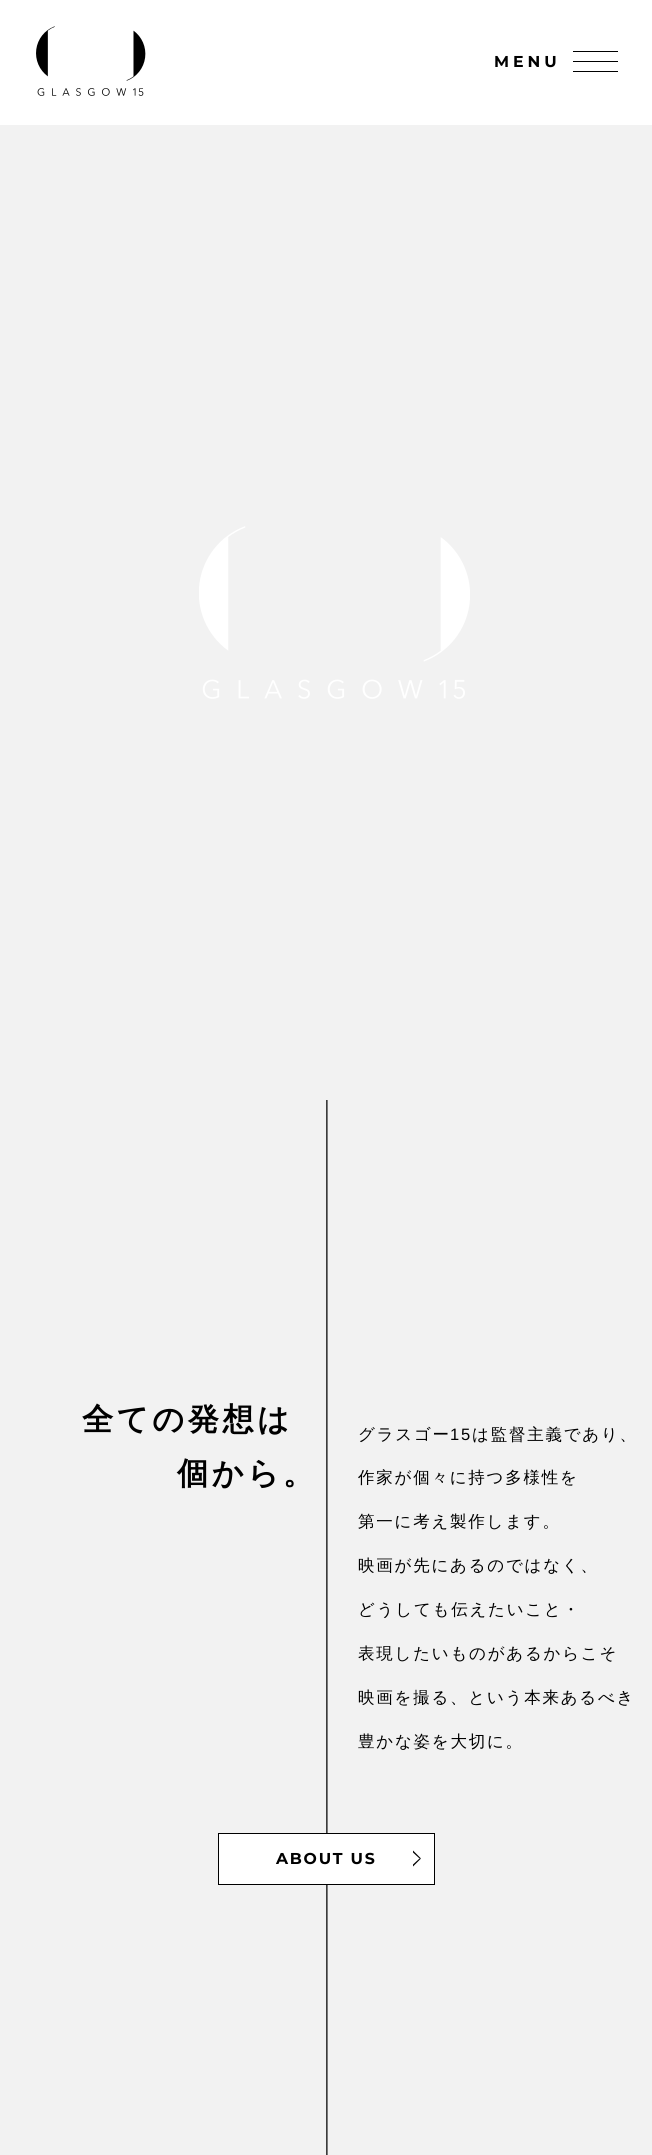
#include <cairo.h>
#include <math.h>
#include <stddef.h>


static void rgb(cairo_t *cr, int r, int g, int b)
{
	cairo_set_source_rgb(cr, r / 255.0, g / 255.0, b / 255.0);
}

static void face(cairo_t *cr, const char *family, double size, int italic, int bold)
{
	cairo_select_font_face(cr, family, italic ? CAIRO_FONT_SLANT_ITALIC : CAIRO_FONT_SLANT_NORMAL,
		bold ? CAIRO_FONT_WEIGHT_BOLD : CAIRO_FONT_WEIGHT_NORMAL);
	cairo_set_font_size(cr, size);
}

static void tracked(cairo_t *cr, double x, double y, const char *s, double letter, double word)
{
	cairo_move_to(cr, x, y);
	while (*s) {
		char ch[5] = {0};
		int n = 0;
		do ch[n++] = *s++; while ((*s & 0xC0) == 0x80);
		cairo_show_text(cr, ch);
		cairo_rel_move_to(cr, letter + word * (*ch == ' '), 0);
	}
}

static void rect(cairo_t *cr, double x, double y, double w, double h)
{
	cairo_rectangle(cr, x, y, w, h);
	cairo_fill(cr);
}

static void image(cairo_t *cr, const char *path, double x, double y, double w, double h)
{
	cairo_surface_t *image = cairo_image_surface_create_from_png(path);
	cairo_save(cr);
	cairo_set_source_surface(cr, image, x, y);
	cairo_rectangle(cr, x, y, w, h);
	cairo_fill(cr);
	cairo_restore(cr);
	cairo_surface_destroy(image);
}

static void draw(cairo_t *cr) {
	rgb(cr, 255, 255, 255);
	cairo_paint(cr);
	image(cr, "image0.png", 36, 26, 110, 70);
	face(cr, "Montserrat", 15.75, 0, 1);
	rgb(cr, 0, 0, 0);
	tracked(cr, 494, 67, "MENU", 4, 0);
	rect(cr, 573, 51, 45, 1);
	rect(cr, 573, 61, 45, 1);
	rect(cr, 573, 71, 45, 1);
	rgb(cr, 242, 242, 242);
	rect(cr, 0, 125, 652, 2030);
	image(cr, "image1.png", 199, 526, 271, 173);
	image(cr, "image2.png", 326, 1100, 2, 1055);
	face(cr, "WenQuanYi Zen Hei", 31.25, 0, 1);
	rgb(cr, 0, 0, 0);
	tracked(cr, 82, 1430, "全ての発想は", 3.5, 0);
	tracked(cr, 177, 1484, "個から。", 3.5, 0);
	face(cr, "WenQuanYi Zen Hei Medium", 16.5, 0, 0);
	tracked(cr, 358, 1440, "グラスゴー", 1.75, 0);
	face(cr, "Liberation Sans", 16.5, 0, 0);
	tracked(cr, 450, 1440, "15", 1.75, 0);
	face(cr, "WenQuanYi Zen Hei Medium", 16.5, 0, 0);
	tracked(cr, 472, 1440, "は監督主義であり、", 1.75, 0);
	tracked(cr, 358, 1483, "作家が個々に持つ多様性を", 1.75, 0);
	tracked(cr, 358, 1527, "第一に考え製作します。", 1.75, 0);
	tracked(cr, 358, 1571, "映画が先にあるのではなく、", 1.75, 0);
	tracked(cr, 358, 1615, "どうしても伝えたいこと・", 1.75, 0);
	tracked(cr, 358, 1659, "表現したいものがあるからこそ", 1.75, 0);
	tracked(cr, 358, 1703, "映画を撮る、という本来あるべき", 1.75, 0);
	tracked(cr, 358, 1747, "豊かな姿を大切に。", 1.75, 0);
	rgb(cr, 255, 255, 255);
	cairo_rectangle(cr, 218.5, 1833.5, 216, 51);
	cairo_fill_preserve(cr);
	rgb(cr, 0, 0, 0);
	cairo_set_line_width(cr, 1);
	cairo_stroke(cr);
	face(cr, "Montserrat", 15.75, 0, 1);
	tracked(cr, 276, 1864, "ABOUT US", 1.75, 0);
	cairo_new_path(cr);
	cairo_move_to(cr, 413, 1850.5);
	cairo_line_to(cr, 421, 1858.5);
	cairo_line_to(cr, 419.5, 1858.5);
	cairo_line_to(cr, 413, 1852.5);
	cairo_close_path(cr);
	cairo_fill(cr);
	cairo_new_path(cr);
	cairo_move_to(cr, 421, 1858.5);
	cairo_line_to(cr, 413, 1866.5);
	cairo_line_to(cr, 413, 1864.5);
	cairo_line_to(cr, 419.5, 1858.5);
	cairo_close_path(cr);
	cairo_fill(cr);
}

int main(void) {
	cairo_surface_t *surface = cairo_image_surface_create(CAIRO_FORMAT_RGB24, 652, 2155);
	cairo_t *cr = cairo_create(surface);
	cairo_font_options_t *options = cairo_font_options_create();
	cairo_font_options_set_hint_metrics(options, CAIRO_HINT_METRICS_OFF);
	cairo_font_options_set_hint_style(options, CAIRO_HINT_STYLE_NONE);
	cairo_set_font_options(cr, options);
	cairo_set_miter_limit(cr, 4);
	draw(cr);
	cairo_surface_write_to_png(surface, "render.png");
	cairo_font_options_destroy(options);
	cairo_destroy(cr);
	cairo_surface_destroy(surface);
	return 0;
}
